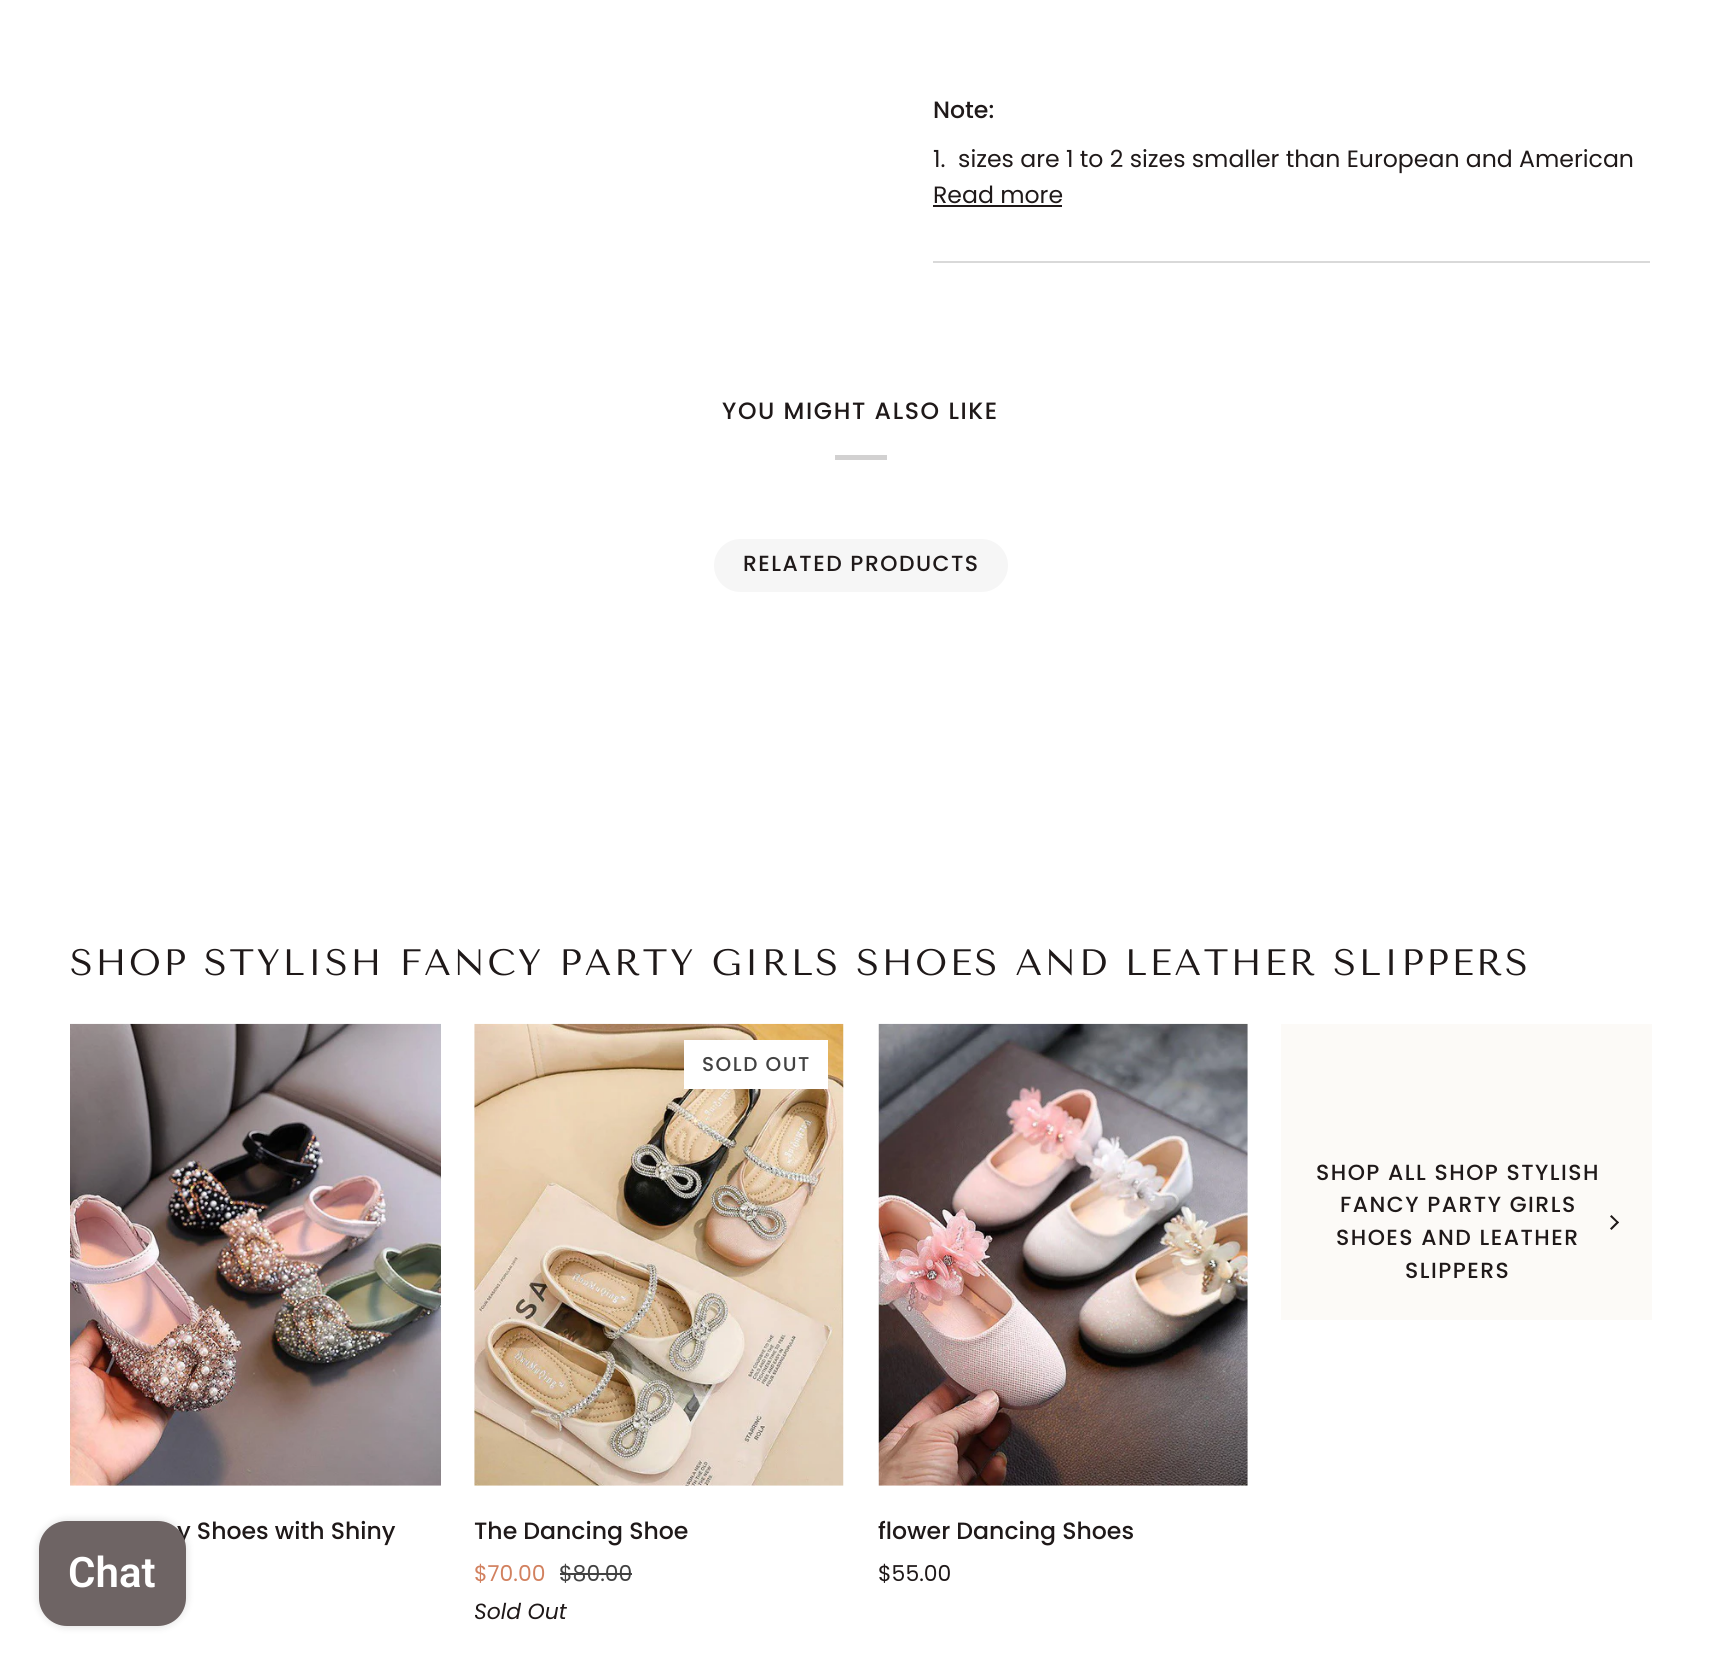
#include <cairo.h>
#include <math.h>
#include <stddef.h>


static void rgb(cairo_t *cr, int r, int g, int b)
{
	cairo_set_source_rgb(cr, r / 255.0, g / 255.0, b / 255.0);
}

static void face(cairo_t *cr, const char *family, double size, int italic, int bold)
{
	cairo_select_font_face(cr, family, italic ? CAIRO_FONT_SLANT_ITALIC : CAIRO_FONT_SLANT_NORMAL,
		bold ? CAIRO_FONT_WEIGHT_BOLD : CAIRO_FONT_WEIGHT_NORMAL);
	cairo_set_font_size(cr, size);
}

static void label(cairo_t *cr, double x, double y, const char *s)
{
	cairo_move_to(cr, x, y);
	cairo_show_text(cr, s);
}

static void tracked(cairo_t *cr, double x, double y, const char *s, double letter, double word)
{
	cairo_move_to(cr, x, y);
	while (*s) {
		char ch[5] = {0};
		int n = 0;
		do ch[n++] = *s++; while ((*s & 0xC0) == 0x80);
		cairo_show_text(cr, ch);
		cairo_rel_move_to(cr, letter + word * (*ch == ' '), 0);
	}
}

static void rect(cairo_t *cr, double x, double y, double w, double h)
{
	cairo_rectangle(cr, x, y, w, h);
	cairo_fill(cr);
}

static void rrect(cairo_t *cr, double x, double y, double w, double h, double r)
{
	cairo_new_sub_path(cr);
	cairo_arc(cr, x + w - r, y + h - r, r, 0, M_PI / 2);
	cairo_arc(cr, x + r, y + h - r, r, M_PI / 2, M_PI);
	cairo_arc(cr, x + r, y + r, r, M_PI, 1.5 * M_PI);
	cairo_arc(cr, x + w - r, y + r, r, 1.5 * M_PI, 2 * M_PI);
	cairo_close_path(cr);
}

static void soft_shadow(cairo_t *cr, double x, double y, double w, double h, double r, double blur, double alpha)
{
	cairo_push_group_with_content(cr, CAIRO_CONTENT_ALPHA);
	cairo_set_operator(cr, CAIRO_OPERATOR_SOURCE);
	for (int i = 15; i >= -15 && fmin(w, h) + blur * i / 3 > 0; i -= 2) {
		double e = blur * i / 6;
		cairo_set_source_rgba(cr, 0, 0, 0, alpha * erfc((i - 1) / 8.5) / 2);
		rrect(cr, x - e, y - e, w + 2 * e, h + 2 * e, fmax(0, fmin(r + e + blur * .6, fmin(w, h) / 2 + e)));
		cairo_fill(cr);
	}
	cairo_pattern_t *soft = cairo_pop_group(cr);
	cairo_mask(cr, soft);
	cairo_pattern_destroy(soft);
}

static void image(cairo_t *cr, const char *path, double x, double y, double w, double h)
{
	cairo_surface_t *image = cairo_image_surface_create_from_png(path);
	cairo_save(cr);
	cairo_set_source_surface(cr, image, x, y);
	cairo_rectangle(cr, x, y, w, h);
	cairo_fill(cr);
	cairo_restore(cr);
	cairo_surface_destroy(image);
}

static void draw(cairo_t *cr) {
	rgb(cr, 255, 255, 255);
	cairo_paint(cr);
	rgb(cr, 217, 217, 217);
	rect(cr, 933, 261, 717, 2);
	face(cr, "Poppins Medium", 23.6, 0, 0);
	rgb(cr, 31, 25, 25);
	label(cr, 933, 118, "Note:");
	face(cr, "Poppins", 23.6, 0, 0);
	label(cr, 933, 167, "1.  sizes are 1 to 2 sizes smaller than European and American");
	label(cr, 933, 203, "Read more");
	rect(cr, 933, 205, 129, 2);
	face(cr, "Poppins Medium", 23.6, 0, 0);
	tracked(cr, 722, 419, "YOU MIGHT ALSO LIKE", 1.6, 0);
	rgb(cr, 210, 209, 209);
	rect(cr, 835, 455, 52, 5);
	rgb(cr, 246, 246, 246);
	rrect(cr, 714, 539, 294, 53, 26.5);
	cairo_fill(cr);
	face(cr, "Poppins Medium", 21.9, 0, 0);
	rgb(cr, 31, 25, 25);
	tracked(cr, 743, 571, "RELATED PRODUCTS", 1.5, 0);
	face(cr, "Tenor Sans", 36.75, 0, 0);
	tracked(cr, 70, 975, "SHOP STYLISH FANCY PARTY GIRLS SHOES AND LEATHER SLIPPERS", 2.57, 0);
	image(cr, "image0.png", 474, 1023, 370, 463);
	rgb(cr, 255, 255, 255);
	rect(cr, 684, 1040, 144, 49);
	face(cr, "Poppins Medium", 20, 0, 0);
	rgb(cr, 66, 66, 66);
	tracked(cr, 702, 1071, "SOLD OUT", 1.5, 0);
	face(cr, "Poppins Medium", 23.6, 0, 0);
	rgb(cr, 31, 25, 25);
	label(cr, 474, 1539, "The Dancing Shoe");
	face(cr, "Poppins", 21.9, 0, 0);
	rgb(cr, 210, 129, 95);
	label(cr, 474, 1581, "$70.00");
	rgb(cr, 66, 66, 66);
	label(cr, 559, 1581, "$80.00");
	rect(cr, 560, 1573, 72, 2);
	face(cr, "Poppins", 21.9, 1, 0);
	rgb(cr, 31, 25, 25);
	label(cr, 474, 1619, "Sold Out");
	rgb(cr, 252, 250, 247);
	rect(cr, 1281, 1024, 371, 296);
	face(cr, "Poppins Medium", 21.9, 0, 0);
	rgb(cr, 31, 25, 25);
	tracked(cr, 1316, 1180, "SHOP ALL SHOP STYLISH", 1.5, 0);
	tracked(cr, 1340, 1212, "FANCY PARTY GIRLS", 1.5, 0);
	cairo_new_path(cr);
	cairo_move_to(cr, 1611.5, 1215);
	cairo_line_to(cr, 1619, 1222.5);
	cairo_line_to(cr, 1617.5, 1223.5);
	cairo_line_to(cr, 1610, 1216.5);
	cairo_close_path(cr);
	cairo_fill(cr);
	cairo_new_path(cr);
	cairo_move_to(cr, 1617.5, 1221);
	cairo_line_to(cr, 1619, 1222.5);
	cairo_line_to(cr, 1611.5, 1230);
	cairo_line_to(cr, 1610, 1228.5);
	cairo_close_path(cr);
	cairo_fill(cr);
	tracked(cr, 1336, 1245, "SHOES AND LEATHER", 1.5, 0);
	tracked(cr, 1405, 1278, "SLIPPERS", 1.5, 0);
	image(cr, "image1.png", 70, 1023, 371, 463);
	face(cr, "Poppins Medium", 23.6, 0, 0);
	label(cr, 177, 1539, "y Shoes with Shiny");
	image(cr, "image2.png", 878, 1023, 370, 463);
	label(cr, 878, 1539, "flower Dancing Shoes");
	face(cr, "Poppins", 21.9, 0, 0);
	label(cr, 878, 1581, "$55.00");
	rgb(cr, 0, 0, 0);
	soft_shadow(cr, 39, 1521, 147, 105, 28, 4.5, 0.15);
	rgb(cr, 110, 100, 100);
	rrect(cr, 39, 1521, 147, 105, 28);
	cairo_fill(cr);
	face(cr, "Roboto SemiBold", 42, 0, 0);
	rgb(cr, 255, 255, 255);
	label(cr, 68, 1587, "Chat");
}

int main(void) {
	cairo_surface_t *surface = cairo_image_surface_create(CAIRO_FORMAT_RGB24, 1721, 1662);
	cairo_t *cr = cairo_create(surface);
	cairo_font_options_t *options = cairo_font_options_create();
	cairo_font_options_set_hint_metrics(options, CAIRO_HINT_METRICS_OFF);
	cairo_font_options_set_hint_style(options, CAIRO_HINT_STYLE_NONE);
	cairo_set_font_options(cr, options);
	cairo_set_miter_limit(cr, 4);
	draw(cr);
	cairo_surface_write_to_png(surface, "render.png");
	cairo_font_options_destroy(options);
	cairo_destroy(cr);
	cairo_surface_destroy(surface);
	return 0;
}
